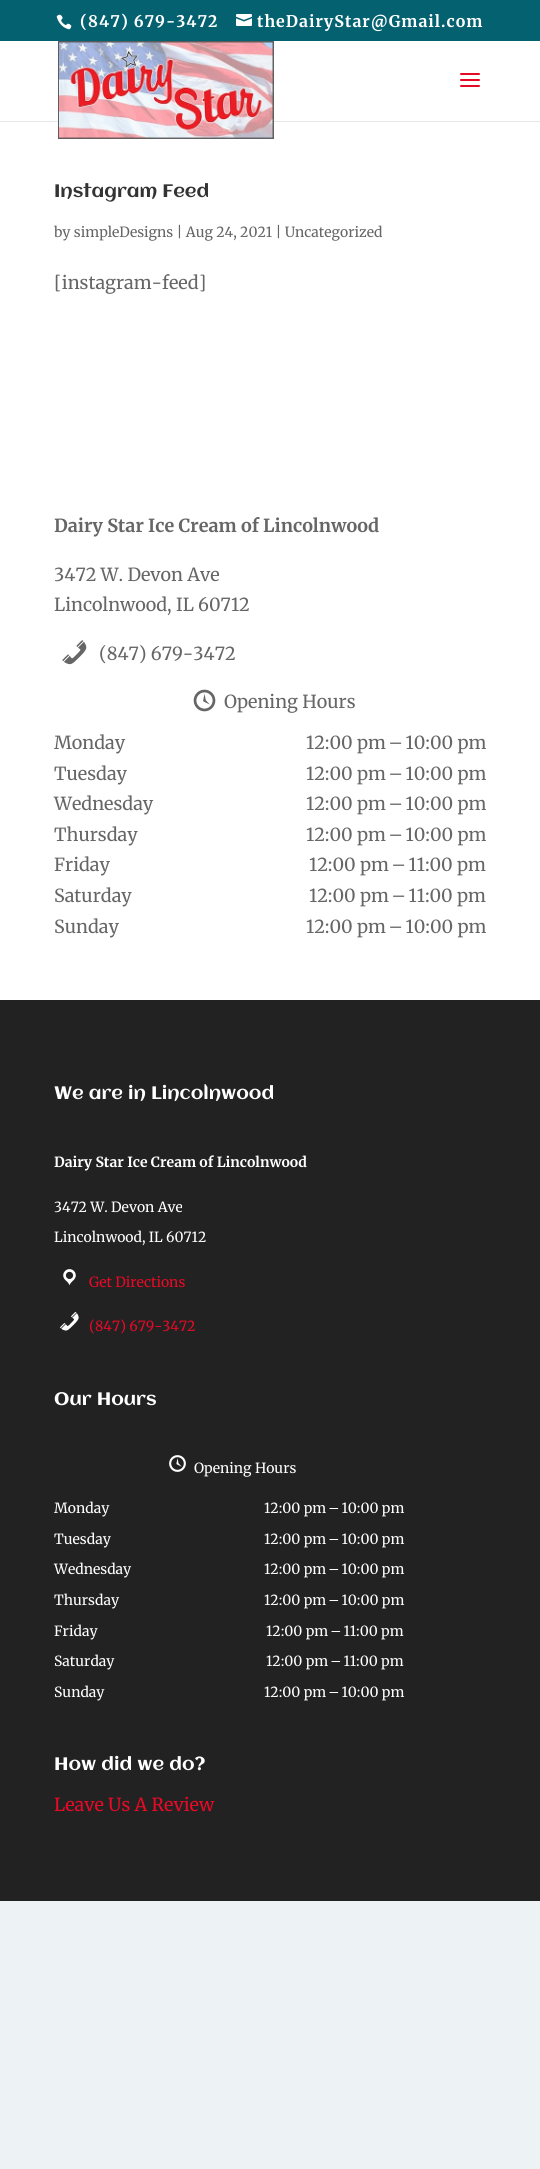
#include <cairo.h>
#include <math.h>
#include <stddef.h>


static void rgb(cairo_t *cr, int r, int g, int b)
{
	cairo_set_source_rgb(cr, r / 255.0, g / 255.0, b / 255.0);
}

static void face(cairo_t *cr, const char *family, double size, int italic, int bold)
{
	cairo_select_font_face(cr, family, italic ? CAIRO_FONT_SLANT_ITALIC : CAIRO_FONT_SLANT_NORMAL,
		bold ? CAIRO_FONT_WEIGHT_BOLD : CAIRO_FONT_WEIGHT_NORMAL);
	cairo_set_font_size(cr, size);
}

static void label(cairo_t *cr, double x, double y, const char *s)
{
	cairo_move_to(cr, x, y);
	cairo_show_text(cr, s);
}

static void tracked(cairo_t *cr, double x, double y, const char *s, double letter, double word)
{
	cairo_move_to(cr, x, y);
	while (*s) {
		char ch[5] = {0};
		int n = 0;
		do ch[n++] = *s++; while ((*s & 0xC0) == 0x80);
		cairo_show_text(cr, ch);
		cairo_rel_move_to(cr, letter + word * (*ch == ' '), 0);
	}
}

static void rect(cairo_t *cr, double x, double y, double w, double h)
{
	cairo_rectangle(cr, x, y, w, h);
	cairo_fill(cr);
}

static void image(cairo_t *cr, const char *path, double x, double y, double w, double h)
{
	cairo_surface_t *image = cairo_image_surface_create_from_png(path);
	cairo_save(cr);
	cairo_set_source_surface(cr, image, x, y);
	cairo_rectangle(cr, x, y, w, h);
	cairo_fill(cr);
	cairo_restore(cr);
	cairo_surface_destroy(image);
}

static void draw(cairo_t *cr) {
	rgb(cr, 237, 242, 244);
	cairo_paint(cr);
	rgb(cr, 4, 97, 112);
	rect(cr, 0, 0, 540, 41);
	image(cr, "image0.png", 56, 14, 16, 16);
	face(cr, "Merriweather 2 Light", 16, 0, 0);
	rgb(cr, 255, 255, 255);
	tracked(cr, 80, 27, "(847) 679-3472", 1, 0);
	image(cr, "image1.png", 236, 14, 16, 12);
	tracked(cr, 257, 27, "theDairyStar@Gmail.com", 1, 0);
	rgb(cr, 230, 230, 230);
	rect(cr, 0, 121, 540, 1);
	rgb(cr, 255, 255, 255);
	rect(cr, 0, 41, 540, 80);
	rect(cr, 0, 122, 540, 878);
	image(cr, "image2.png", 58, 41, 216, 98);
	image(cr, "image3.png", 460, 73, 20, 14);
	face(cr, "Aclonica", 18, 0, 0);
	rgb(cr, 51, 51, 51);
	label(cr, 54, 197, "Instagram Feed");
	face(cr, "Merriweather Light", 14, 0, 0);
	rgb(cr, 102, 102, 102);
	label(cr, 54, 237, "by simpleDesigns | Aug 24, 2021 | Uncategorized");
	face(cr, "Merriweather Light", 18, 0, 0);
	label(cr, 54, 289, "[instagram-feed]");
	face(cr, "Merriweather 2 Light", 18, 0, 0);
	label(cr, 54, 532, "Dairy Star Ice Cream of Lincolnwood");
	face(cr, "Merriweather Light", 18, 0, 0);
	label(cr, 54, 581, "3472 W. Devon Ave");
	label(cr, 54, 611, "Lincolnwood, IL 60712");
	image(cr, "image4.png", 62, 640, 25, 25);
	label(cr, 99, 660, "(847) 679-3472");
	image(cr, "image5.png", 193, 689, 23, 23);
	label(cr, 224, 708, "Opening Hours");
	label(cr, 54, 749, "Monday");
	label(cr, 306, 749, "12:00 pm – 10:00 pm");
	label(cr, 54, 780, "Tuesday");
	label(cr, 306, 780, "12:00 pm – 10:00 pm");
	label(cr, 54, 810, "Wednesday");
	label(cr, 306, 810, "12:00 pm – 10:00 pm");
	label(cr, 54, 841, "Thursday");
	label(cr, 306, 841, "12:00 pm – 10:00 pm");
	label(cr, 54, 871, "Friday");
	label(cr, 309, 871, "12:00 pm – 11:00 pm");
	label(cr, 54, 902, "Saturday");
	label(cr, 309, 902, "12:00 pm – 11:00 pm");
	label(cr, 54, 933, "Sunday");
	label(cr, 306, 933, "12:00 pm – 10:00 pm");
	rgb(cr, 34, 34, 34);
	rect(cr, 0, 1000, 540, 901);
	face(cr, "Aclonica", 18, 0, 0);
	rgb(cr, 255, 255, 255);
	label(cr, 54, 1099, "We are in Lincolnwood");
	face(cr, "Merriweather 2 Light", 14, 0, 0);
	label(cr, 54, 1167, "Dairy Star Ice Cream of Lincolnwood");
	face(cr, "Merriweather Light", 14, 0, 0);
	label(cr, 54, 1212, "3472 W. Devon Ave");
	label(cr, 54, 1242, "Lincolnwood, IL 60712");
	image(cr, "image6.png", 63, 1269, 13, 17);
	rgb(cr, 232, 9, 38);
	label(cr, 89, 1287, "Get Directions");
	image(cr, "image7.png", 60, 1312, 19, 19);
	label(cr, 89, 1331, "(847) 679-3472");
	face(cr, "Aclonica", 18, 0, 0);
	rgb(cr, 255, 255, 255);
	label(cr, 54, 1405, "Our Hours");
	image(cr, "image8.png", 169, 1455, 17, 17);
	face(cr, "Merriweather Light", 14, 0, 0);
	label(cr, 194, 1473, "Opening Hours");
	label(cr, 54, 1513, "Monday");
	label(cr, 264, 1513, "12:00 pm – 10:00 pm");
	label(cr, 54, 1544, "Tuesday");
	label(cr, 264, 1544, "12:00 pm – 10:00 pm");
	label(cr, 54, 1574, "Wednesday");
	label(cr, 264, 1574, "12:00 pm – 10:00 pm");
	label(cr, 54, 1605, "Thursday");
	label(cr, 264, 1605, "12:00 pm – 10:00 pm");
	label(cr, 54, 1636, "Friday");
	label(cr, 266, 1636, "12:00 pm – 11:00 pm");
	label(cr, 54, 1666, "Saturday");
	label(cr, 266, 1666, "12:00 pm – 11:00 pm");
	label(cr, 54, 1697, "Sunday");
	label(cr, 264, 1697, "12:00 pm – 10:00 pm");
	face(cr, "Aclonica", 18, 0, 0);
	label(cr, 54, 1770, "How did we do?");
	face(cr, "Merriweather Light", 18, 0, 0);
	rgb(cr, 232, 9, 38);
	label(cr, 54, 1811, "Leave Us A Review");
}

int main(void) {
	cairo_surface_t *surface = cairo_image_surface_create(CAIRO_FORMAT_RGB24, 540, 2169);
	cairo_t *cr = cairo_create(surface);
	cairo_font_options_t *options = cairo_font_options_create();
	cairo_font_options_set_hint_metrics(options, CAIRO_HINT_METRICS_OFF);
	cairo_font_options_set_hint_style(options, CAIRO_HINT_STYLE_NONE);
	cairo_set_font_options(cr, options);
	cairo_set_miter_limit(cr, 4);
	draw(cr);
	cairo_surface_write_to_png(surface, "render.png");
	cairo_font_options_destroy(options);
	cairo_destroy(cr);
	cairo_surface_destroy(surface);
	return 0;
}
